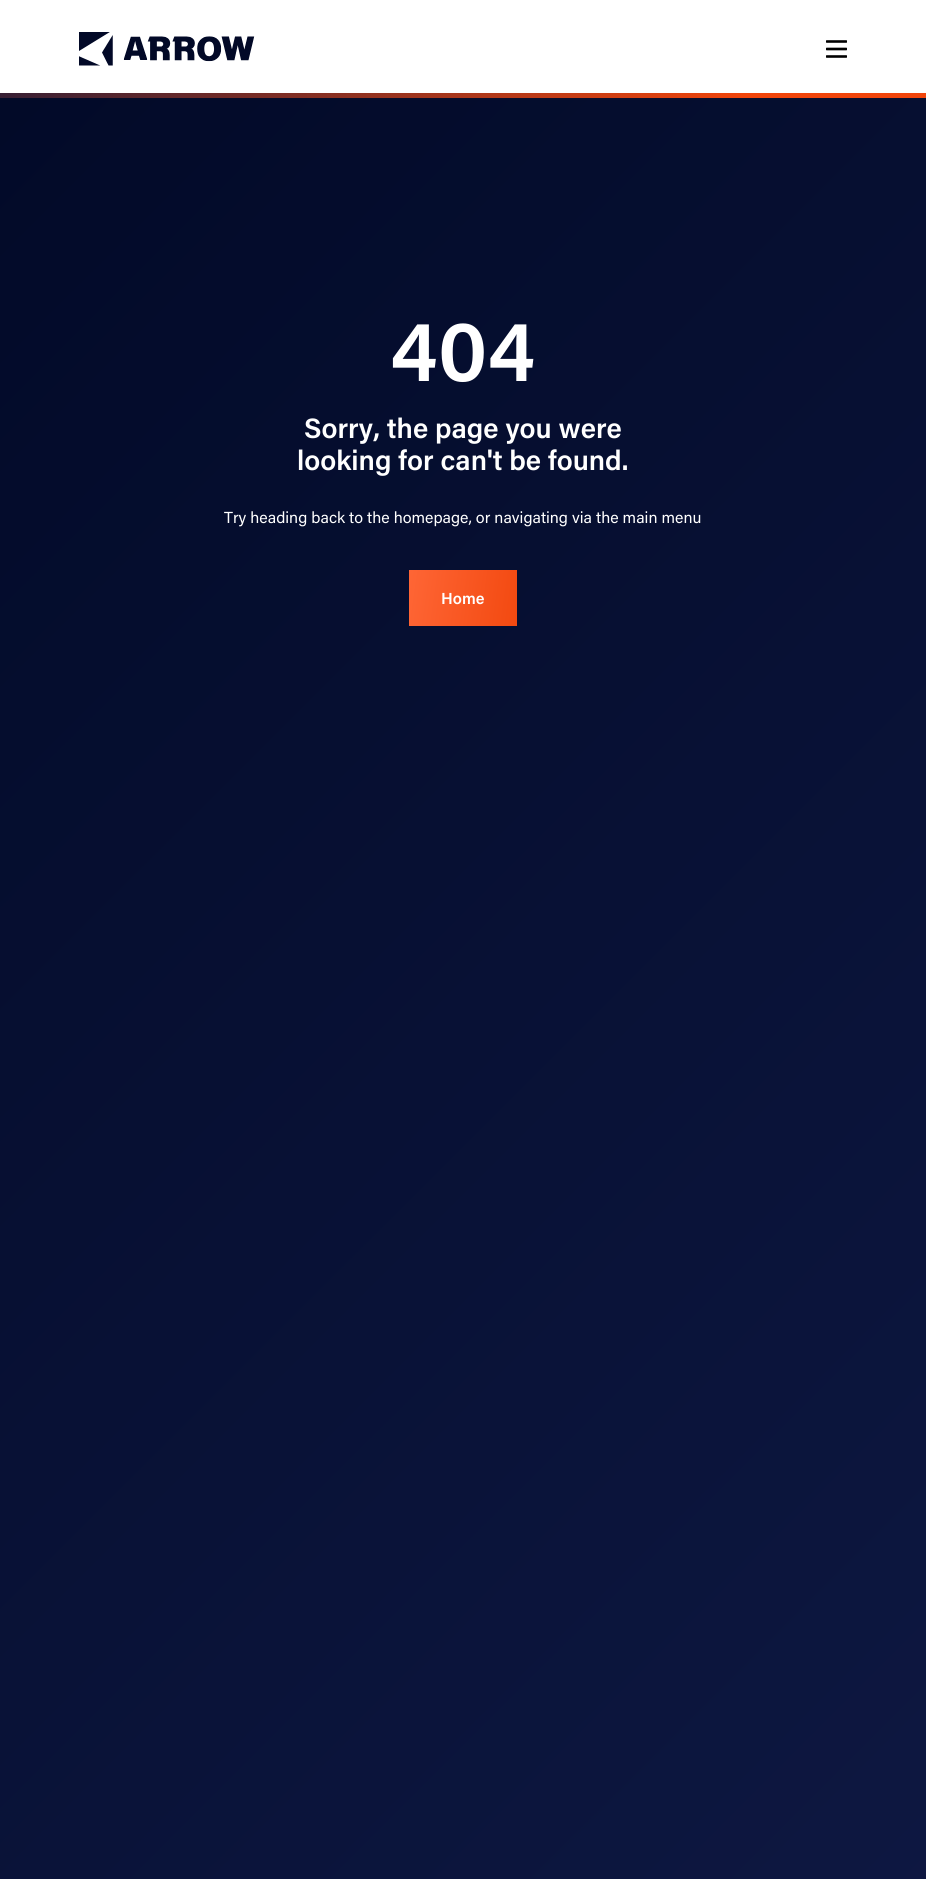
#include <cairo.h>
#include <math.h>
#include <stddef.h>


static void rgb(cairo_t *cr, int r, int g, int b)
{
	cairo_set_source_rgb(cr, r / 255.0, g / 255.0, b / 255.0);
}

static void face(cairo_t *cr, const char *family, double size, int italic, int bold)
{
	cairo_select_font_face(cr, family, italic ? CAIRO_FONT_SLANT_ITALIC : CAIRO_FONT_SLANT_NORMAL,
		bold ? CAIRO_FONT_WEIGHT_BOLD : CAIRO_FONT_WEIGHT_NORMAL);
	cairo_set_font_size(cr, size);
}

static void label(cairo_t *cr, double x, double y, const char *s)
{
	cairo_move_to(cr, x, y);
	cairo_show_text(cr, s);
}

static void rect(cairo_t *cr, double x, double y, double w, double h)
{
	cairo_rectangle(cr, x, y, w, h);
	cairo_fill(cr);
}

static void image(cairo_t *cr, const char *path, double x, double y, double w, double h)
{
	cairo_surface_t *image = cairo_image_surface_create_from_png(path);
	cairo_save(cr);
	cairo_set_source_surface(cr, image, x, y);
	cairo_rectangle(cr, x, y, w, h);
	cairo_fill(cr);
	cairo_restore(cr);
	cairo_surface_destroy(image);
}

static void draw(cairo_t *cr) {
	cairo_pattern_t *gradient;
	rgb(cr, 255, 255, 255);
	cairo_paint(cr);
	image(cr, "image0.png", 79, 32, 176, 34);
	image(cr, "image1.png", 826, 40, 21, 18);
	gradient = cairo_pattern_create_linear(-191, 96, 926, 95);
	cairo_pattern_add_color_stop_rgba(gradient, 0, 0.031, 0.082, 0.243, 1);
	cairo_pattern_add_color_stop_rgba(gradient, 0.84, 0.945, 0.271, 0.043, 1);
	cairo_set_source(cr, gradient);
	cairo_pattern_destroy(gradient);
	rect(cr, 0, 93, 926, 5);
	gradient = cairo_pattern_create_linear(-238, 336, 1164, 1739);
	cairo_pattern_add_color_stop_rgba(gradient, 0, 0.008, 0.039, 0.157, 1);
	cairo_pattern_add_color_stop_rgba(gradient, 1, 0.055, 0.094, 0.259, 1);
	cairo_set_source(cr, gradient);
	cairo_pattern_destroy(gradient);
	rect(cr, 0, 98, 926, 1781);
	face(cr, "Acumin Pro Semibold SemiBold", 86, 0, 0);
	rgb(cr, 255, 255, 255);
	label(cr, 390, 381, "404");
	face(cr, "Acumin Pro Semibold SemiBold", 28, 0, 0);
	label(cr, 304, 438, "Sorry, the page you were");
	label(cr, 297, 470, "looking for can't be found.");
	face(cr, "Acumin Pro", 16, 0, 0);
	label(cr, 224, 523, "Try heading back to the homepage, or navigating via the main menu");
	gradient = cairo_pattern_create_linear(400, 589, 537, 609);
	cairo_pattern_add_color_stop_rgba(gradient, 0, 1, 0.404, 0.216, 1);
	cairo_pattern_add_color_stop_rgba(gradient, 1, 0.945, 0.271, 0.043, 1);
	cairo_set_source(cr, gradient);
	cairo_pattern_destroy(gradient);
	rect(cr, 409, 570, 108, 56);
	face(cr, "Acumin Pro Semibold SemiBold", 16, 0, 0);
	rgb(cr, 255, 255, 255);
	label(cr, 441, 604, "Home");
}

int main(void) {
	cairo_surface_t *surface = cairo_image_surface_create(CAIRO_FORMAT_RGB24, 926, 1879);
	cairo_t *cr = cairo_create(surface);
	cairo_font_options_t *options = cairo_font_options_create();
	cairo_font_options_set_hint_metrics(options, CAIRO_HINT_METRICS_OFF);
	cairo_font_options_set_hint_style(options, CAIRO_HINT_STYLE_NONE);
	cairo_set_font_options(cr, options);
	cairo_set_miter_limit(cr, 4);
	draw(cr);
	cairo_surface_write_to_png(surface, "render.png");
	cairo_font_options_destroy(options);
	cairo_destroy(cr);
	cairo_surface_destroy(surface);
	return 0;
}
